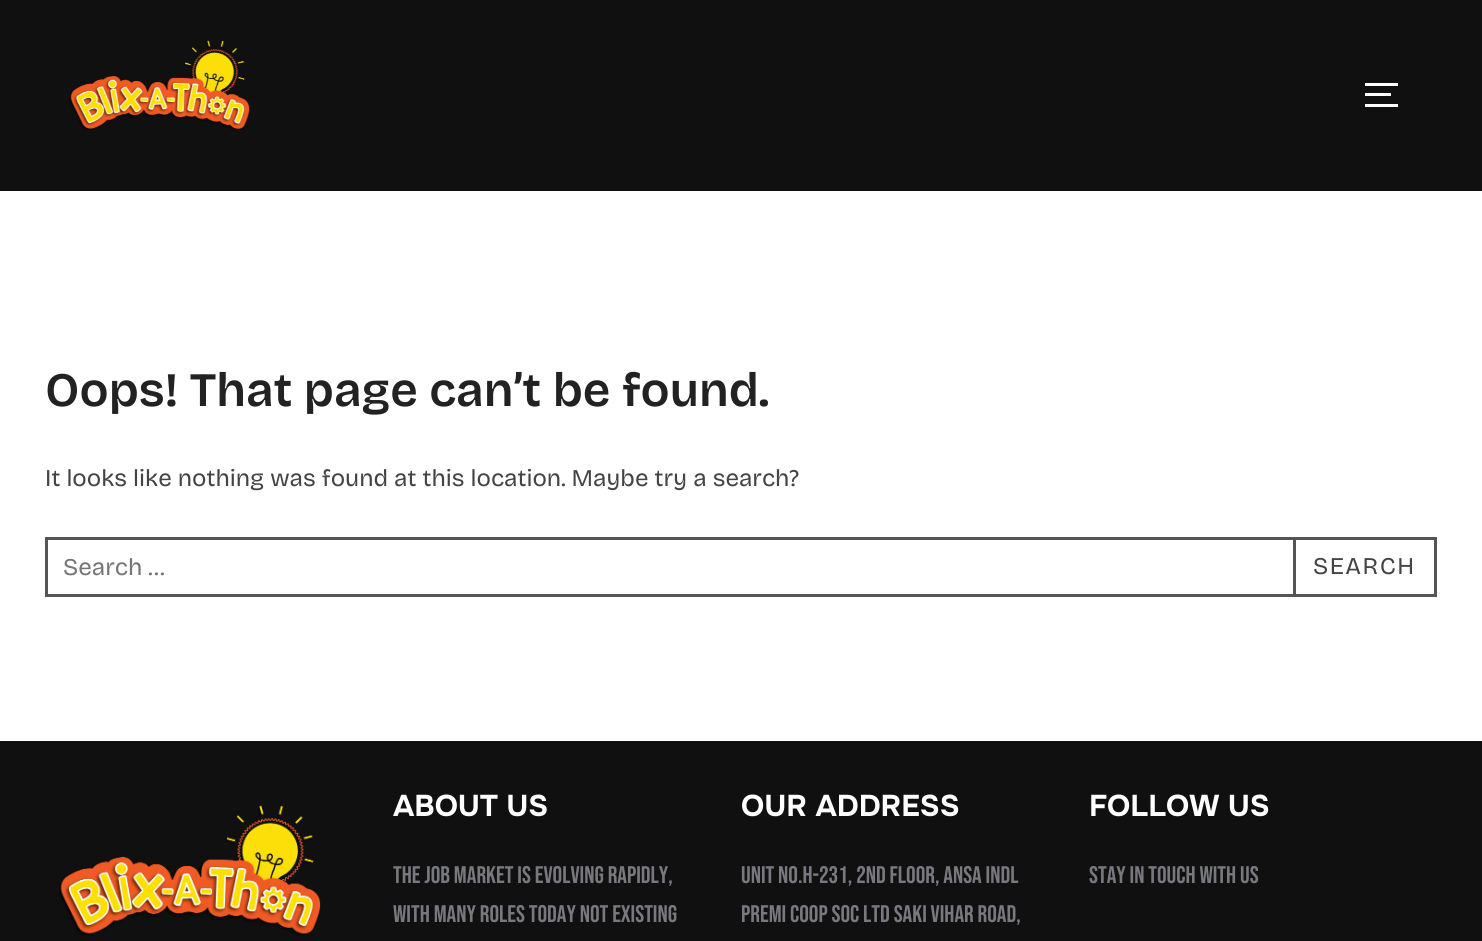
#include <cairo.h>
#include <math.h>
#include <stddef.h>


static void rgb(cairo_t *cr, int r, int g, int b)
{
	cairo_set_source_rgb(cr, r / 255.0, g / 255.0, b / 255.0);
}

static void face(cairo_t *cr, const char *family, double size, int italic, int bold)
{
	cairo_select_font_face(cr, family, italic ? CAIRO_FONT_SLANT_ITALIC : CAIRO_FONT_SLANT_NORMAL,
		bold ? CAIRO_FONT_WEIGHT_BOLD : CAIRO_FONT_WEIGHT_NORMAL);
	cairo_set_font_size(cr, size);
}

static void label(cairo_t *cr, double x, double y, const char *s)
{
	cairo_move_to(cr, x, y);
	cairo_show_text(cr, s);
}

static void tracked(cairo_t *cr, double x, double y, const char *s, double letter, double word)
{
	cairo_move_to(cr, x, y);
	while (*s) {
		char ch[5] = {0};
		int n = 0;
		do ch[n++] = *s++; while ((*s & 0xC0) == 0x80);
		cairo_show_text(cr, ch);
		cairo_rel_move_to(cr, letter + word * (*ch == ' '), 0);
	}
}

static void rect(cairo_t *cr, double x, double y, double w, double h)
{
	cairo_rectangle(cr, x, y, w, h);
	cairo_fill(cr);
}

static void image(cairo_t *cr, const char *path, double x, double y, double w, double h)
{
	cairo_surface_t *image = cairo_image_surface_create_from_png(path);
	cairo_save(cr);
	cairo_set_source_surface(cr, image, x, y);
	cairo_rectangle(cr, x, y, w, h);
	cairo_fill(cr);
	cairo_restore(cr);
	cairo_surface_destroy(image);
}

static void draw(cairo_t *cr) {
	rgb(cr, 255, 255, 255);
	cairo_paint(cr);
	rgb(cr, 16, 16, 16);
	rect(cr, 0, 0, 1482, 191);
	image(cr, "image0.png", 69, 40, 181, 90);
	rgb(cr, 255, 255, 255);
	rect(cr, 1365, 83, 33, 3);
	rect(cr, 1365, 93, 26, 3);
	rect(cr, 1365, 104, 33, 3);
	face(cr, "Bricolage Grotesque SemiBold", 48, 0, 0);
	rgb(cr, 34, 34, 34);
	label(cr, 45, 406, "Oops! That page can’t be found.");
	face(cr, "Bricolage Grotesque", 24, 0, 0);
	rgb(cr, 68, 68, 68);
	label(cr, 45, 486, "It looks like nothing was found at this location. Maybe try a search?");
	cairo_rectangle(cr, 46.5, 538.5, 1389, 57);
	rgb(cr, 86, 85, 85);
	cairo_set_line_width(cr, 3);
	cairo_stroke(cr);
	rgb(cr, 117, 117, 117);
	label(cr, 63, 575, "Search …");
	cairo_rectangle(cr, 1294.5, 538.5, 141, 57);
	rgb(cr, 86, 85, 85);
	cairo_stroke(cr);
	rgb(cr, 68, 68, 68);
	tracked(cr, 1313, 574, "SEARCH", 1.5, 0);
	rgb(cr, 16, 16, 16);
	rect(cr, 0, 741, 1482, 200);
	image(cr, "image1.png", 59, 805, 262, 131);
	face(cr, "Onest", 30, 0, 1);
	rgb(cr, 255, 255, 255);
	label(cr, 393, 816, "ABOUT US");
	face(cr, "Bebas Neue", 24, 0, 0);
	rgb(cr, 120, 120, 127);
	label(cr, 393, 883, "The job market is evolving rapidly,");
	label(cr, 393, 922, "with many roles today not existing");
	face(cr, "Onest", 30, 0, 1);
	rgb(cr, 255, 255, 255);
	label(cr, 741, 816, "OUR ADDRESS");
	face(cr, "Bebas Neue", 24, 0, 0);
	rgb(cr, 120, 120, 127);
	label(cr, 741, 883, "Unit No.H-231, 2nd Floor, Ansa Indl");
	label(cr, 741, 922, "Premi Coop Soc Ltd Saki Vihar Road,");
	face(cr, "Onest", 30, 0, 1);
	rgb(cr, 255, 255, 255);
	label(cr, 1089, 816, "FOLLOW US");
	face(cr, "Bebas Neue", 24, 0, 0);
	rgb(cr, 120, 120, 127);
	label(cr, 1089, 883, "Stay in touch with us");
}

int main(void) {
	cairo_surface_t *surface = cairo_image_surface_create(CAIRO_FORMAT_RGB24, 1482, 941);
	cairo_t *cr = cairo_create(surface);
	cairo_font_options_t *options = cairo_font_options_create();
	cairo_font_options_set_hint_metrics(options, CAIRO_HINT_METRICS_OFF);
	cairo_font_options_set_hint_style(options, CAIRO_HINT_STYLE_NONE);
	cairo_set_font_options(cr, options);
	cairo_set_miter_limit(cr, 4);
	draw(cr);
	cairo_surface_write_to_png(surface, "render.png");
	cairo_font_options_destroy(options);
	cairo_destroy(cr);
	cairo_surface_destroy(surface);
	return 0;
}
